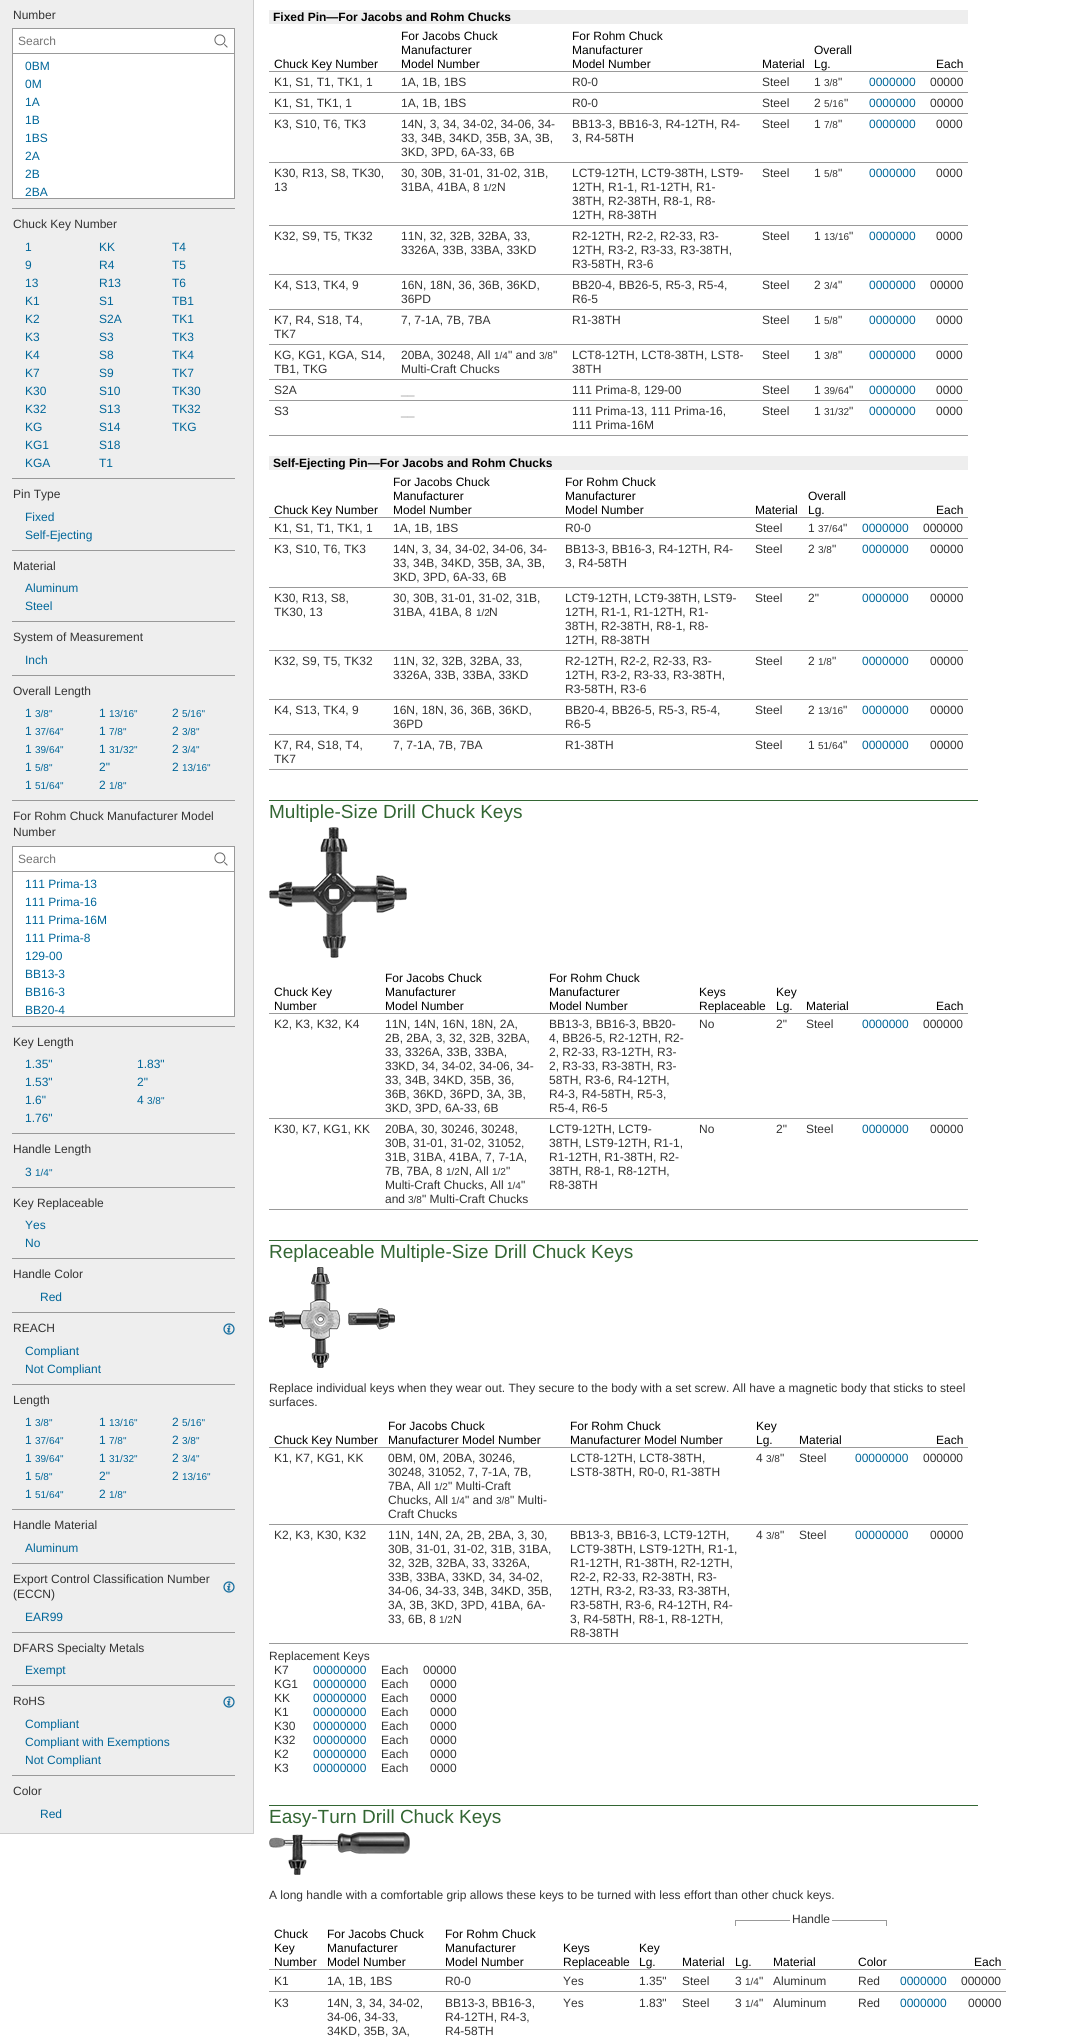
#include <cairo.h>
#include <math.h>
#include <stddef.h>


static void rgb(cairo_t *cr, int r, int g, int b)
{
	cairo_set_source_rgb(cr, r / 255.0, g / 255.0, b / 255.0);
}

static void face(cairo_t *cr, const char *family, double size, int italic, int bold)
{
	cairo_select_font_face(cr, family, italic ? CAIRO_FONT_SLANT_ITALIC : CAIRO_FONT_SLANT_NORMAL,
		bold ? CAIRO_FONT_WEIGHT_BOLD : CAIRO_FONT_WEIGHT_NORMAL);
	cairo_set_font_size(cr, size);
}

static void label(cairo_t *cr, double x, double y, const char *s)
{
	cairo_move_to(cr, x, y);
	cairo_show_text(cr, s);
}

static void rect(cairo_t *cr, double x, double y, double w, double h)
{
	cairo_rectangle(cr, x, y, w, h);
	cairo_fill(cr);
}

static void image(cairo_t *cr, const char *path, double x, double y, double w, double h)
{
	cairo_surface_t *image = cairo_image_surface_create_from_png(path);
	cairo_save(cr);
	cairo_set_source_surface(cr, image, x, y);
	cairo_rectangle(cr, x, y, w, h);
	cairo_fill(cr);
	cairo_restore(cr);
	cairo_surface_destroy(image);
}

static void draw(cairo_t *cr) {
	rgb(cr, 255, 255, 255);
	cairo_paint(cr);
	rgb(cr, 238, 238, 238);
	rect(cr, 0, 0, 253, 1833);
	rgb(cr, 204, 204, 204);
	rect(cr, 253, 0, 1, 1834);
	rect(cr, 0, 1833, 254, 1);
	face(cr, "Liberation Sans", 12, 0, 0);
	rgb(cr, 51, 51, 51);
	label(cr, 13, 19, "Number");
	rgb(cr, 255, 255, 255);
	cairo_rectangle(cr, 12.5, 28.5, 222, 25);
	cairo_fill_preserve(cr);
	rgb(cr, 153, 153, 153);
	cairo_set_line_width(cr, 1);
	cairo_stroke(cr);
	rgb(cr, 117, 117, 117);
	label(cr, 18, 45, "Search");
	image(cr, "image0.png", 214, 34, 14, 14);
	rgb(cr, 255, 255, 255);
	rect(cr, 13, 54, 221, 144);
	rgb(cr, 153, 153, 153);
	rect(cr, 234, 54, 1, 145);
	rect(cr, 12, 198, 223, 1);
	rect(cr, 12, 54, 1, 145);
	rgb(cr, 0, 102, 153);
	label(cr, 25, 70, "0BM");
	label(cr, 25, 88, "0M");
	label(cr, 25, 106, "1A");
	label(cr, 25, 124, "1B");
	label(cr, 25, 142, "1BS");
	label(cr, 25, 160, "2A");
	label(cr, 25, 178, "2B");
	label(cr, 25, 196, "2BA");
	rgb(cr, 153, 153, 153);
	rect(cr, 12, 208, 223, 1);
	rgb(cr, 51, 51, 51);
	label(cr, 13, 228, "Chuck Key Number");
	rgb(cr, 0, 102, 153);
	label(cr, 25, 251, "1");
	label(cr, 25, 269, "9");
	label(cr, 25, 287, "13");
	label(cr, 25, 305, "K1");
	label(cr, 25, 323, "K2");
	label(cr, 25, 341, "K3");
	label(cr, 25, 359, "K4");
	label(cr, 25, 377, "K7");
	label(cr, 25, 395, "K30");
	label(cr, 25, 413, "K32");
	label(cr, 25, 431, "KG");
	label(cr, 25, 449, "KG1");
	label(cr, 25, 467, "KGA");
	label(cr, 99, 251, "KK");
	label(cr, 99, 269, "R4");
	label(cr, 99, 287, "R13");
	label(cr, 99, 305, "S1");
	label(cr, 99, 323, "S2A");
	label(cr, 99, 341, "S3");
	label(cr, 99, 359, "S8");
	label(cr, 99, 377, "S9");
	label(cr, 99, 395, "S10");
	label(cr, 99, 413, "S13");
	label(cr, 99, 431, "S14");
	label(cr, 99, 449, "S18");
	label(cr, 99, 467, "T1");
	label(cr, 172, 251, "T4");
	label(cr, 172, 269, "T5");
	label(cr, 172, 287, "T6");
	label(cr, 172, 305, "TB1");
	label(cr, 172, 323, "TK1");
	label(cr, 172, 341, "TK3");
	label(cr, 172, 359, "TK4");
	label(cr, 172, 377, "TK7");
	label(cr, 172, 395, "TK30");
	label(cr, 172, 413, "TK32");
	label(cr, 172, 431, "TKG");
	rgb(cr, 153, 153, 153);
	rect(cr, 12, 478, 223, 1);
	rgb(cr, 51, 51, 51);
	label(cr, 13, 498, "Pin Type");
	rgb(cr, 0, 102, 153);
	label(cr, 25, 521, "Fixed");
	label(cr, 25, 539, "Self-Ejecting");
	rgb(cr, 153, 153, 153);
	rect(cr, 12, 550, 223, 1);
	rgb(cr, 51, 51, 51);
	label(cr, 13, 570, "Material");
	rgb(cr, 0, 102, 153);
	label(cr, 25, 592, "Aluminum");
	label(cr, 25, 610, "Steel");
	rgb(cr, 153, 153, 153);
	rect(cr, 12, 621, 223, 1);
	rgb(cr, 51, 51, 51);
	label(cr, 13, 641, "System of Measurement");
	rgb(cr, 0, 102, 153);
	label(cr, 25, 664, "Inch");
	rgb(cr, 153, 153, 153);
	rect(cr, 12, 675, 223, 1);
	rgb(cr, 51, 51, 51);
	label(cr, 13, 695, "Overall Length");
	rgb(cr, 0, 102, 153);
	label(cr, 25, 717, "1");
	face(cr, "Liberation Sans", 10, 0, 0);
	label(cr, 35, 717, "3/8\"");
	face(cr, "Liberation Sans", 12, 0, 0);
	label(cr, 25, 735, "1");
	face(cr, "Liberation Sans", 10, 0, 0);
	label(cr, 35, 735, "37/64\"");
	face(cr, "Liberation Sans", 12, 0, 0);
	label(cr, 25, 753, "1");
	face(cr, "Liberation Sans", 10, 0, 0);
	label(cr, 35, 753, "39/64\"");
	face(cr, "Liberation Sans", 12, 0, 0);
	label(cr, 25, 771, "1");
	face(cr, "Liberation Sans", 10, 0, 0);
	label(cr, 35, 771, "5/8\"");
	face(cr, "Liberation Sans", 12, 0, 0);
	label(cr, 25, 789, "1");
	face(cr, "Liberation Sans", 10, 0, 0);
	label(cr, 35, 789, "51/64\"");
	face(cr, "Liberation Sans", 12, 0, 0);
	label(cr, 99, 717, "1");
	face(cr, "Liberation Sans", 10, 0, 0);
	label(cr, 109, 717, "13/16\"");
	face(cr, "Liberation Sans", 12, 0, 0);
	label(cr, 99, 735, "1");
	face(cr, "Liberation Sans", 10, 0, 0);
	label(cr, 109, 735, "7/8\"");
	face(cr, "Liberation Sans", 12, 0, 0);
	label(cr, 99, 753, "1");
	face(cr, "Liberation Sans", 10, 0, 0);
	label(cr, 109, 753, "31/32\"");
	face(cr, "Liberation Sans", 12, 0, 0);
	label(cr, 99, 771, "2\"");
	label(cr, 99, 789, "2");
	face(cr, "Liberation Sans", 10, 0, 0);
	label(cr, 109, 789, "1/8\"");
	face(cr, "Liberation Sans", 12, 0, 0);
	label(cr, 172, 717, "2");
	face(cr, "Liberation Sans", 10, 0, 0);
	label(cr, 182, 717, "5/16\"");
	face(cr, "Liberation Sans", 12, 0, 0);
	label(cr, 172, 735, "2");
	face(cr, "Liberation Sans", 10, 0, 0);
	label(cr, 182, 735, "3/8\"");
	face(cr, "Liberation Sans", 12, 0, 0);
	label(cr, 172, 753, "2");
	face(cr, "Liberation Sans", 10, 0, 0);
	label(cr, 182, 753, "3/4\"");
	face(cr, "Liberation Sans", 12, 0, 0);
	label(cr, 172, 771, "2");
	face(cr, "Liberation Sans", 10, 0, 0);
	label(cr, 182, 771, "13/16\"");
	rgb(cr, 153, 153, 153);
	rect(cr, 12, 800, 223, 1);
	face(cr, "Liberation Sans", 12, 0, 0);
	rgb(cr, 51, 51, 51);
	label(cr, 13, 820, "For Rohm Chuck Manufacturer Model");
	label(cr, 13, 836, "Number");
	rgb(cr, 255, 255, 255);
	cairo_rectangle(cr, 12.5, 846.5, 222, 25);
	cairo_fill_preserve(cr);
	rgb(cr, 153, 153, 153);
	cairo_stroke(cr);
	rgb(cr, 117, 117, 117);
	label(cr, 18, 863, "Search");
	image(cr, "image0.png", 214, 852, 14, 14);
	rgb(cr, 255, 255, 255);
	rect(cr, 13, 872, 221, 144);
	rgb(cr, 153, 153, 153);
	rect(cr, 234, 872, 1, 145);
	rect(cr, 12, 1016, 223, 1);
	rect(cr, 12, 872, 1, 145);
	rgb(cr, 0, 102, 153);
	label(cr, 25, 888, "111 Prima-13");
	label(cr, 25, 906, "111 Prima-16");
	label(cr, 25, 924, "111 Prima-16M");
	label(cr, 25, 942, "111 Prima-8");
	label(cr, 25, 960, "129-00");
	label(cr, 25, 978, "BB13-3");
	label(cr, 25, 996, "BB16-3");
	label(cr, 25, 1014, "BB20-4");
	rgb(cr, 153, 153, 153);
	rect(cr, 12, 1026, 223, 1);
	rgb(cr, 51, 51, 51);
	label(cr, 13, 1046, "Key Length");
	rgb(cr, 0, 102, 153);
	label(cr, 25, 1068, "1.35\"");
	label(cr, 25, 1086, "1.53\"");
	label(cr, 25, 1104, "1.6\"");
	label(cr, 25, 1122, "1.76\"");
	label(cr, 137, 1068, "1.83\"");
	label(cr, 137, 1086, "2\"");
	label(cr, 137, 1104, "4");
	face(cr, "Liberation Sans", 10, 0, 0);
	label(cr, 147, 1104, "3/8\"");
	rgb(cr, 153, 153, 153);
	rect(cr, 12, 1133, 223, 1);
	face(cr, "Liberation Sans", 12, 0, 0);
	rgb(cr, 51, 51, 51);
	label(cr, 13, 1153, "Handle Length");
	rgb(cr, 0, 102, 153);
	label(cr, 25, 1176, "3");
	face(cr, "Liberation Sans", 10, 0, 0);
	label(cr, 35, 1176, "1/4\"");
	rgb(cr, 153, 153, 153);
	rect(cr, 12, 1187, 223, 1);
	face(cr, "Liberation Sans", 12, 0, 0);
	rgb(cr, 51, 51, 51);
	label(cr, 13, 1207, "Key Replaceable");
	rgb(cr, 0, 102, 153);
	label(cr, 25, 1229, "Yes");
	label(cr, 25, 1247, "No");
	rgb(cr, 153, 153, 153);
	rect(cr, 12, 1258, 223, 1);
	rgb(cr, 51, 51, 51);
	label(cr, 13, 1278, "Handle Color");
	rgb(cr, 0, 102, 153);
	label(cr, 40, 1301, "Red");
	rgb(cr, 153, 153, 153);
	rect(cr, 12, 1312, 223, 1);
	rgb(cr, 51, 51, 51);
	label(cr, 13, 1332, "REACH");
	image(cr, "image1.png", 223, 1323, 12, 12);
	rgb(cr, 0, 102, 153);
	label(cr, 25, 1355, "Compliant");
	label(cr, 25, 1373, "Not Compliant");
	rgb(cr, 153, 153, 153);
	rect(cr, 12, 1384, 223, 1);
	rgb(cr, 51, 51, 51);
	label(cr, 13, 1404, "Length");
	rgb(cr, 0, 102, 153);
	label(cr, 25, 1426, "1");
	face(cr, "Liberation Sans", 10, 0, 0);
	label(cr, 35, 1426, "3/8\"");
	face(cr, "Liberation Sans", 12, 0, 0);
	label(cr, 25, 1444, "1");
	face(cr, "Liberation Sans", 10, 0, 0);
	label(cr, 35, 1444, "37/64\"");
	face(cr, "Liberation Sans", 12, 0, 0);
	label(cr, 25, 1462, "1");
	face(cr, "Liberation Sans", 10, 0, 0);
	label(cr, 35, 1462, "39/64\"");
	face(cr, "Liberation Sans", 12, 0, 0);
	label(cr, 25, 1480, "1");
	face(cr, "Liberation Sans", 10, 0, 0);
	label(cr, 35, 1480, "5/8\"");
	face(cr, "Liberation Sans", 12, 0, 0);
	label(cr, 25, 1498, "1");
	face(cr, "Liberation Sans", 10, 0, 0);
	label(cr, 35, 1498, "51/64\"");
	face(cr, "Liberation Sans", 12, 0, 0);
	label(cr, 99, 1426, "1");
	face(cr, "Liberation Sans", 10, 0, 0);
	label(cr, 109, 1426, "13/16\"");
	face(cr, "Liberation Sans", 12, 0, 0);
	label(cr, 99, 1444, "1");
	face(cr, "Liberation Sans", 10, 0, 0);
	label(cr, 109, 1444, "7/8\"");
	face(cr, "Liberation Sans", 12, 0, 0);
	label(cr, 99, 1462, "1");
	face(cr, "Liberation Sans", 10, 0, 0);
	label(cr, 109, 1462, "31/32\"");
	face(cr, "Liberation Sans", 12, 0, 0);
	label(cr, 99, 1480, "2\"");
	label(cr, 99, 1498, "2");
	face(cr, "Liberation Sans", 10, 0, 0);
	label(cr, 109, 1498, "1/8\"");
	face(cr, "Liberation Sans", 12, 0, 0);
	label(cr, 172, 1426, "2");
	face(cr, "Liberation Sans", 10, 0, 0);
	label(cr, 182, 1426, "5/16\"");
	face(cr, "Liberation Sans", 12, 0, 0);
	label(cr, 172, 1444, "2");
	face(cr, "Liberation Sans", 10, 0, 0);
	label(cr, 182, 1444, "3/8\"");
	face(cr, "Liberation Sans", 12, 0, 0);
	label(cr, 172, 1462, "2");
	face(cr, "Liberation Sans", 10, 0, 0);
	label(cr, 182, 1462, "3/4\"");
	face(cr, "Liberation Sans", 12, 0, 0);
	label(cr, 172, 1480, "2");
	face(cr, "Liberation Sans", 10, 0, 0);
	label(cr, 182, 1480, "13/16\"");
	rgb(cr, 153, 153, 153);
	rect(cr, 12, 1509, 223, 1);
	face(cr, "Liberation Sans", 12, 0, 0);
	rgb(cr, 51, 51, 51);
	label(cr, 13, 1529, "Handle Material");
	rgb(cr, 0, 102, 153);
	label(cr, 25, 1552, "Aluminum");
	rgb(cr, 153, 153, 153);
	rect(cr, 12, 1563, 223, 1);
	rgb(cr, 51, 51, 51);
	label(cr, 13, 1583, "Export Control Classification Number");
	label(cr, 13, 1598, "(ECCN)");
	image(cr, "image1.png", 223, 1581, 12, 12);
	rgb(cr, 0, 102, 153);
	label(cr, 25, 1621, "EAR99");
	rgb(cr, 153, 153, 153);
	rect(cr, 12, 1632, 223, 1);
	rgb(cr, 51, 51, 51);
	label(cr, 13, 1652, "DFARS Specialty Metals");
	rgb(cr, 0, 102, 153);
	label(cr, 25, 1674, "Exempt");
	rgb(cr, 153, 153, 153);
	rect(cr, 12, 1685, 223, 1);
	rgb(cr, 51, 51, 51);
	label(cr, 13, 1705, "RoHS");
	image(cr, "image1.png", 223, 1696, 12, 12);
	rgb(cr, 0, 102, 153);
	label(cr, 25, 1728, "Compliant");
	label(cr, 25, 1746, "Compliant with Exemptions");
	label(cr, 25, 1764, "Not Compliant");
	rgb(cr, 153, 153, 153);
	rect(cr, 12, 1775, 223, 1);
	rgb(cr, 51, 51, 51);
	label(cr, 13, 1795, "Color");
	rgb(cr, 0, 102, 153);
	label(cr, 40, 1818, "Red");
	rgb(cr, 238, 238, 238);
	rect(cr, 269, 10, 699, 14);
	face(cr, "Liberation Sans", 12, 0, 1);
	rgb(cr, 0, 0, 0);
	label(cr, 273, 21, "Fixed Pin—For Jacobs and Rohm Chucks");
	rgb(cr, 153, 153, 153);
	rect(cr, 269, 71, 699, 1);
	face(cr, "Liberation Sans", 12, 0, 0);
	rgb(cr, 0, 0, 0);
	label(cr, 274, 68, "Chuck Key Number");
	label(cr, 401, 40, "For Jacobs Chuck");
	label(cr, 401, 54, "Manufacturer");
	label(cr, 401, 68, "Model Number");
	label(cr, 572, 40, "For Rohm Chuck");
	label(cr, 572, 54, "Manufacturer");
	label(cr, 572, 68, "Model Number");
	label(cr, 762, 68, "Material");
	label(cr, 814, 54, "Overall");
	label(cr, 814, 68, "Lg.");
	label(cr, 936, 68, "Each");
	rgb(cr, 153, 153, 153);
	rect(cr, 269, 92, 699, 1);
	rgb(cr, 51, 51, 51);
	label(cr, 274, 86, "K1, S1, T1, TK1, 1");
	label(cr, 401, 86, "1A, 1B, 1BS");
	label(cr, 572, 86, "R0-0");
	label(cr, 762, 86, "Steel");
	label(cr, 814, 86, "1");
	face(cr, "Liberation Sans", 10, 0, 0);
	label(cr, 824, 86, "3/8");
	face(cr, "Liberation Sans", 12, 0, 0);
	label(cr, 838, 86, "\"");
	rgb(cr, 0, 102, 153);
	label(cr, 869, 86, "0000000");
	rgb(cr, 51, 51, 51);
	label(cr, 930, 86, "00000");
	rgb(cr, 153, 153, 153);
	rect(cr, 269, 113, 699, 1);
	rgb(cr, 51, 51, 51);
	label(cr, 274, 107, "K1, S1, TK1, 1");
	label(cr, 401, 107, "1A, 1B, 1BS");
	label(cr, 572, 107, "R0-0");
	label(cr, 762, 107, "Steel");
	label(cr, 814, 107, "2");
	face(cr, "Liberation Sans", 10, 0, 0);
	label(cr, 824, 107, "5/16");
	face(cr, "Liberation Sans", 12, 0, 0);
	label(cr, 844, 107, "\"");
	rgb(cr, 0, 102, 153);
	label(cr, 869, 107, "0000000");
	rgb(cr, 51, 51, 51);
	label(cr, 930, 107, "00000");
	rgb(cr, 153, 153, 153);
	rect(cr, 269, 162, 699, 1);
	rgb(cr, 51, 51, 51);
	label(cr, 274, 128, "K3, S10, T6, TK3");
	label(cr, 401, 128, "14N, 3, 34, 34-02, 34-06, 34-");
	label(cr, 401, 142, "33, 34B, 34KD, 35B, 3A, 3B,");
	label(cr, 401, 156, "3KD, 3PD, 6A-33, 6B");
	label(cr, 572, 128, "BB13-3, BB16-3, R4-12TH, R4-");
	label(cr, 572, 142, "3, R4-58TH");
	label(cr, 762, 128, "Steel");
	label(cr, 814, 128, "1");
	face(cr, "Liberation Sans", 10, 0, 0);
	label(cr, 824, 128, "7/8");
	face(cr, "Liberation Sans", 12, 0, 0);
	label(cr, 838, 128, "\"");
	rgb(cr, 0, 102, 153);
	label(cr, 869, 128, "0000000");
	rgb(cr, 51, 51, 51);
	label(cr, 936, 128, "0000");
	rgb(cr, 153, 153, 153);
	rect(cr, 269, 225, 699, 1);
	rgb(cr, 51, 51, 51);
	label(cr, 274, 177, "K30, R13, S8, TK30,");
	label(cr, 274, 191, "13");
	label(cr, 401, 177, "30, 30B, 31-01, 31-02, 31B,");
	label(cr, 401, 191, "31BA, 41BA, 8");
	face(cr, "Liberation Sans", 10, 0, 0);
	label(cr, 483, 191, "1/2");
	face(cr, "Liberation Sans", 12, 0, 0);
	label(cr, 497, 191, "N");
	label(cr, 572, 177, "LCT9-12TH, LCT9-38TH, LST9-");
	label(cr, 572, 191, "12TH, R1-1, R1-12TH, R1-");
	label(cr, 572, 205, "38TH, R2-38TH, R8-1, R8-");
	label(cr, 572, 219, "12TH, R8-38TH");
	label(cr, 762, 177, "Steel");
	label(cr, 814, 177, "1");
	face(cr, "Liberation Sans", 10, 0, 0);
	label(cr, 824, 177, "5/8");
	face(cr, "Liberation Sans", 12, 0, 0);
	label(cr, 838, 177, "\"");
	rgb(cr, 0, 102, 153);
	label(cr, 869, 177, "0000000");
	rgb(cr, 51, 51, 51);
	label(cr, 936, 177, "0000");
	rgb(cr, 153, 153, 153);
	rect(cr, 269, 274, 699, 1);
	rgb(cr, 51, 51, 51);
	label(cr, 274, 240, "K32, S9, T5, TK32");
	label(cr, 401, 240, "11N, 32, 32B, 32BA, 33,");
	label(cr, 401, 254, "3326A, 33B, 33BA, 33KD");
	label(cr, 572, 240, "R2-12TH, R2-2, R2-33, R3-");
	label(cr, 572, 254, "12TH, R3-2, R3-33, R3-38TH,");
	label(cr, 572, 268, "R3-58TH, R3-6");
	label(cr, 762, 240, "Steel");
	label(cr, 814, 240, "1");
	face(cr, "Liberation Sans", 10, 0, 0);
	label(cr, 824, 240, "13/16");
	face(cr, "Liberation Sans", 12, 0, 0);
	label(cr, 849, 240, "\"");
	rgb(cr, 0, 102, 153);
	label(cr, 869, 240, "0000000");
	rgb(cr, 51, 51, 51);
	label(cr, 936, 240, "0000");
	rgb(cr, 153, 153, 153);
	rect(cr, 269, 309, 699, 1);
	rgb(cr, 51, 51, 51);
	label(cr, 274, 289, "K4, S13, TK4, 9");
	label(cr, 401, 289, "16N, 18N, 36, 36B, 36KD,");
	label(cr, 401, 303, "36PD");
	label(cr, 572, 289, "BB20-4, BB26-5, R5-3, R5-4,");
	label(cr, 572, 303, "R6-5");
	label(cr, 762, 289, "Steel");
	label(cr, 814, 289, "2");
	face(cr, "Liberation Sans", 10, 0, 0);
	label(cr, 824, 289, "3/4");
	face(cr, "Liberation Sans", 12, 0, 0);
	label(cr, 838, 289, "\"");
	rgb(cr, 0, 102, 153);
	label(cr, 869, 289, "0000000");
	rgb(cr, 51, 51, 51);
	label(cr, 930, 289, "00000");
	rgb(cr, 153, 153, 153);
	rect(cr, 269, 344, 699, 1);
	rgb(cr, 51, 51, 51);
	label(cr, 274, 324, "K7, R4, S18, T4,");
	label(cr, 274, 338, "TK7");
	label(cr, 401, 324, "7, 7-1A, 7B, 7BA");
	label(cr, 572, 324, "R1-38TH");
	label(cr, 762, 324, "Steel");
	label(cr, 814, 324, "1");
	face(cr, "Liberation Sans", 10, 0, 0);
	label(cr, 824, 324, "5/8");
	face(cr, "Liberation Sans", 12, 0, 0);
	label(cr, 838, 324, "\"");
	rgb(cr, 0, 102, 153);
	label(cr, 869, 324, "0000000");
	rgb(cr, 51, 51, 51);
	label(cr, 936, 324, "0000");
	rgb(cr, 153, 153, 153);
	rect(cr, 269, 379, 699, 1);
	rgb(cr, 51, 51, 51);
	label(cr, 274, 359, "KG, KG1, KGA, S14,");
	label(cr, 274, 373, "TB1, TKG");
	label(cr, 401, 359, "20BA, 30248, All");
	face(cr, "Liberation Sans", 10, 0, 0);
	label(cr, 494, 359, "1/4");
	face(cr, "Liberation Sans", 12, 0, 0);
	label(cr, 508, 359, "\" and");
	face(cr, "Liberation Sans", 10, 0, 0);
	label(cr, 539, 359, "3/8");
	face(cr, "Liberation Sans", 12, 0, 0);
	label(cr, 553, 359, "\"");
	label(cr, 401, 373, "Multi-Craft Chucks");
	label(cr, 572, 359, "LCT8-12TH, LCT8-38TH, LST8-");
	label(cr, 572, 373, "38TH");
	label(cr, 762, 359, "Steel");
	label(cr, 814, 359, "1");
	face(cr, "Liberation Sans", 10, 0, 0);
	label(cr, 824, 359, "3/8");
	face(cr, "Liberation Sans", 12, 0, 0);
	label(cr, 838, 359, "\"");
	rgb(cr, 0, 102, 153);
	label(cr, 869, 359, "0000000");
	rgb(cr, 51, 51, 51);
	label(cr, 936, 359, "0000");
	rgb(cr, 153, 153, 153);
	rect(cr, 269, 400, 699, 1);
	rgb(cr, 51, 51, 51);
	label(cr, 274, 394, "S2A");
	label(cr, 572, 394, "111 Prima-8, 129-00");
	label(cr, 762, 394, "Steel");
	label(cr, 814, 394, "1");
	face(cr, "Liberation Sans", 10, 0, 0);
	label(cr, 824, 394, "39/64");
	face(cr, "Liberation Sans", 12, 0, 0);
	label(cr, 849, 394, "\"");
	rgb(cr, 0, 102, 153);
	label(cr, 869, 394, "0000000");
	rgb(cr, 51, 51, 51);
	label(cr, 936, 394, "0000");
	rgb(cr, 153, 153, 153);
	label(cr, 401, 394, "__");
	rect(cr, 269, 435, 699, 1);
	rgb(cr, 51, 51, 51);
	label(cr, 274, 415, "S3");
	label(cr, 572, 415, "111 Prima-13, 111 Prima-16,");
	label(cr, 572, 429, "111 Prima-16M");
	label(cr, 762, 415, "Steel");
	label(cr, 814, 415, "1");
	face(cr, "Liberation Sans", 10, 0, 0);
	label(cr, 824, 415, "31/32");
	face(cr, "Liberation Sans", 12, 0, 0);
	label(cr, 849, 415, "\"");
	rgb(cr, 0, 102, 153);
	label(cr, 869, 415, "0000000");
	rgb(cr, 51, 51, 51);
	label(cr, 936, 415, "0000");
	rgb(cr, 153, 153, 153);
	label(cr, 401, 415, "__");
	rgb(cr, 238, 238, 238);
	rect(cr, 269, 456, 699, 14);
	face(cr, "Liberation Sans", 12, 0, 1);
	rgb(cr, 0, 0, 0);
	label(cr, 273, 467, "Self-Ejecting Pin—For Jacobs and Rohm Chucks");
	rgb(cr, 153, 153, 153);
	rect(cr, 269, 517, 699, 1);
	face(cr, "Liberation Sans", 12, 0, 0);
	rgb(cr, 0, 0, 0);
	label(cr, 274, 514, "Chuck Key Number");
	label(cr, 393, 486, "For Jacobs Chuck");
	label(cr, 393, 500, "Manufacturer");
	label(cr, 393, 514, "Model Number");
	label(cr, 565, 486, "For Rohm Chuck");
	label(cr, 565, 500, "Manufacturer");
	label(cr, 565, 514, "Model Number");
	label(cr, 755, 514, "Material");
	label(cr, 808, 500, "Overall");
	label(cr, 808, 514, "Lg.");
	label(cr, 936, 514, "Each");
	rgb(cr, 153, 153, 153);
	rect(cr, 269, 538, 699, 1);
	rgb(cr, 51, 51, 51);
	label(cr, 274, 532, "K1, S1, T1, TK1, 1");
	label(cr, 393, 532, "1A, 1B, 1BS");
	label(cr, 565, 532, "R0-0");
	label(cr, 755, 532, "Steel");
	label(cr, 808, 532, "1");
	face(cr, "Liberation Sans", 10, 0, 0);
	label(cr, 818, 532, "37/64");
	face(cr, "Liberation Sans", 12, 0, 0);
	label(cr, 843, 532, "\"");
	rgb(cr, 0, 102, 153);
	label(cr, 862, 532, "0000000");
	rgb(cr, 51, 51, 51);
	label(cr, 923, 532, "000000");
	rgb(cr, 153, 153, 153);
	rect(cr, 269, 587, 699, 1);
	rgb(cr, 51, 51, 51);
	label(cr, 274, 553, "K3, S10, T6, TK3");
	label(cr, 393, 553, "14N, 3, 34, 34-02, 34-06, 34-");
	label(cr, 393, 567, "33, 34B, 34KD, 35B, 3A, 3B,");
	label(cr, 393, 581, "3KD, 3PD, 6A-33, 6B");
	label(cr, 565, 553, "BB13-3, BB16-3, R4-12TH, R4-");
	label(cr, 565, 567, "3, R4-58TH");
	label(cr, 755, 553, "Steel");
	label(cr, 808, 553, "2");
	face(cr, "Liberation Sans", 10, 0, 0);
	label(cr, 818, 553, "3/8");
	face(cr, "Liberation Sans", 12, 0, 0);
	label(cr, 832, 553, "\"");
	rgb(cr, 0, 102, 153);
	label(cr, 862, 553, "0000000");
	rgb(cr, 51, 51, 51);
	label(cr, 930, 553, "00000");
	rgb(cr, 153, 153, 153);
	rect(cr, 269, 650, 699, 1);
	rgb(cr, 51, 51, 51);
	label(cr, 274, 602, "K30, R13, S8,");
	label(cr, 274, 616, "TK30, 13");
	label(cr, 393, 602, "30, 30B, 31-01, 31-02, 31B,");
	label(cr, 393, 616, "31BA, 41BA, 8");
	face(cr, "Liberation Sans", 10, 0, 0);
	label(cr, 476, 616, "1/2");
	face(cr, "Liberation Sans", 12, 0, 0);
	label(cr, 489, 616, "N");
	label(cr, 565, 602, "LCT9-12TH, LCT9-38TH, LST9-");
	label(cr, 565, 616, "12TH, R1-1, R1-12TH, R1-");
	label(cr, 565, 630, "38TH, R2-38TH, R8-1, R8-");
	label(cr, 565, 644, "12TH, R8-38TH");
	label(cr, 755, 602, "Steel");
	label(cr, 808, 602, "2\"");
	rgb(cr, 0, 102, 153);
	label(cr, 862, 602, "0000000");
	rgb(cr, 51, 51, 51);
	label(cr, 930, 602, "00000");
	rgb(cr, 153, 153, 153);
	rect(cr, 269, 699, 699, 1);
	rgb(cr, 51, 51, 51);
	label(cr, 274, 665, "K32, S9, T5, TK32");
	label(cr, 393, 665, "11N, 32, 32B, 32BA, 33,");
	label(cr, 393, 679, "3326A, 33B, 33BA, 33KD");
	label(cr, 565, 665, "R2-12TH, R2-2, R2-33, R3-");
	label(cr, 565, 679, "12TH, R3-2, R3-33, R3-38TH,");
	label(cr, 565, 693, "R3-58TH, R3-6");
	label(cr, 755, 665, "Steel");
	label(cr, 808, 665, "2");
	face(cr, "Liberation Sans", 10, 0, 0);
	label(cr, 818, 665, "1/8");
	face(cr, "Liberation Sans", 12, 0, 0);
	label(cr, 832, 665, "\"");
	rgb(cr, 0, 102, 153);
	label(cr, 862, 665, "0000000");
	rgb(cr, 51, 51, 51);
	label(cr, 930, 665, "00000");
	rgb(cr, 153, 153, 153);
	rect(cr, 269, 734, 699, 1);
	rgb(cr, 51, 51, 51);
	label(cr, 274, 714, "K4, S13, TK4, 9");
	label(cr, 393, 714, "16N, 18N, 36, 36B, 36KD,");
	label(cr, 393, 728, "36PD");
	label(cr, 565, 714, "BB20-4, BB26-5, R5-3, R5-4,");
	label(cr, 565, 728, "R6-5");
	label(cr, 755, 714, "Steel");
	label(cr, 808, 714, "2");
	face(cr, "Liberation Sans", 10, 0, 0);
	label(cr, 818, 714, "13/16");
	face(cr, "Liberation Sans", 12, 0, 0);
	label(cr, 843, 714, "\"");
	rgb(cr, 0, 102, 153);
	label(cr, 862, 714, "0000000");
	rgb(cr, 51, 51, 51);
	label(cr, 930, 714, "00000");
	rgb(cr, 153, 153, 153);
	rect(cr, 269, 769, 699, 1);
	rgb(cr, 51, 51, 51);
	label(cr, 274, 749, "K7, R4, S18, T4,");
	label(cr, 274, 763, "TK7");
	label(cr, 393, 749, "7, 7-1A, 7B, 7BA");
	label(cr, 565, 749, "R1-38TH");
	label(cr, 755, 749, "Steel");
	label(cr, 808, 749, "1");
	face(cr, "Liberation Sans", 10, 0, 0);
	label(cr, 818, 749, "51/64");
	face(cr, "Liberation Sans", 12, 0, 0);
	label(cr, 843, 749, "\"");
	rgb(cr, 0, 102, 153);
	label(cr, 862, 749, "0000000");
	rgb(cr, 51, 51, 51);
	label(cr, 930, 749, "00000");
	rgb(cr, 51, 102, 51);
	rect(cr, 269, 800, 709, 1);
	face(cr, "Liberation Sans", 19, 0, 0);
	label(cr, 269, 818, "Multiple-Size Drill Chuck Keys");
	image(cr, "image2.png", 269, 827, 138, 131);
	rgb(cr, 153, 153, 153);
	rect(cr, 269, 1013, 699, 1);
	face(cr, "Liberation Sans", 12, 0, 0);
	rgb(cr, 0, 0, 0);
	label(cr, 274, 996, "Chuck Key");
	label(cr, 274, 1010, "Number");
	label(cr, 385, 982, "For Jacobs Chuck");
	label(cr, 385, 996, "Manufacturer");
	label(cr, 385, 1010, "Model Number");
	label(cr, 549, 982, "For Rohm Chuck");
	label(cr, 549, 996, "Manufacturer");
	label(cr, 549, 1010, "Model Number");
	label(cr, 699, 996, "Keys");
	label(cr, 699, 1010, "Replaceable");
	label(cr, 776, 996, "Key");
	label(cr, 776, 1010, "Lg.");
	label(cr, 806, 1010, "Material");
	label(cr, 936, 1010, "Each");
	rgb(cr, 153, 153, 153);
	rect(cr, 269, 1118, 699, 1);
	rgb(cr, 51, 51, 51);
	label(cr, 274, 1028, "K2, K3, K32, K4");
	label(cr, 385, 1028, "11N, 14N, 16N, 18N, 2A,");
	label(cr, 385, 1042, "2B, 2BA, 3, 32, 32B, 32BA,");
	label(cr, 385, 1056, "33, 3326A, 33B, 33BA,");
	label(cr, 385, 1070, "33KD, 34, 34-02, 34-06, 34-");
	label(cr, 385, 1084, "33, 34B, 34KD, 35B, 36,");
	label(cr, 385, 1098, "36B, 36KD, 36PD, 3A, 3B,");
	label(cr, 385, 1112, "3KD, 3PD, 6A-33, 6B");
	label(cr, 549, 1028, "BB13-3, BB16-3, BB20-");
	label(cr, 549, 1042, "4, BB26-5, R2-12TH, R2-");
	label(cr, 549, 1056, "2, R2-33, R3-12TH, R3-");
	label(cr, 549, 1070, "2, R3-33, R3-38TH, R3-");
	label(cr, 549, 1084, "58TH, R3-6, R4-12TH,");
	label(cr, 549, 1098, "R4-3, R4-58TH, R5-3,");
	label(cr, 549, 1112, "R5-4, R6-5");
	label(cr, 699, 1028, "No");
	label(cr, 776, 1028, "2\"");
	label(cr, 806, 1028, "Steel");
	rgb(cr, 0, 102, 153);
	label(cr, 862, 1028, "0000000");
	rgb(cr, 51, 51, 51);
	label(cr, 923, 1028, "000000");
	rgb(cr, 153, 153, 153);
	rect(cr, 269, 1209, 699, 1);
	rgb(cr, 51, 51, 51);
	label(cr, 274, 1133, "K30, K7, KG1, KK");
	label(cr, 385, 1133, "20BA, 30, 30246, 30248,");
	label(cr, 385, 1147, "30B, 31-01, 31-02, 31052,");
	label(cr, 385, 1161, "31B, 31BA, 41BA, 7, 7-1A,");
	label(cr, 385, 1175, "7B, 7BA, 8");
	face(cr, "Liberation Sans", 10, 0, 0);
	label(cr, 446, 1175, "1/2");
	face(cr, "Liberation Sans", 12, 0, 0);
	label(cr, 460, 1175, "N, All");
	face(cr, "Liberation Sans", 10, 0, 0);
	label(cr, 492, 1175, "1/2");
	face(cr, "Liberation Sans", 12, 0, 0);
	label(cr, 506, 1175, "\"");
	label(cr, 385, 1189, "Multi-Craft Chucks, All");
	face(cr, "Liberation Sans", 10, 0, 0);
	label(cr, 507, 1189, "1/4");
	face(cr, "Liberation Sans", 12, 0, 0);
	label(cr, 521, 1189, "\"");
	label(cr, 385, 1203, "and");
	face(cr, "Liberation Sans", 10, 0, 0);
	label(cr, 408, 1203, "3/8");
	face(cr, "Liberation Sans", 12, 0, 0);
	label(cr, 422, 1203, "\" Multi-Craft Chucks");
	label(cr, 549, 1133, "LCT9-12TH, LCT9-");
	label(cr, 549, 1147, "38TH, LST9-12TH, R1-1,");
	label(cr, 549, 1161, "R1-12TH, R1-38TH, R2-");
	label(cr, 549, 1175, "38TH, R8-1, R8-12TH,");
	label(cr, 549, 1189, "R8-38TH");
	label(cr, 699, 1133, "No");
	label(cr, 776, 1133, "2\"");
	label(cr, 806, 1133, "Steel");
	rgb(cr, 0, 102, 153);
	label(cr, 862, 1133, "0000000");
	rgb(cr, 51, 51, 51);
	label(cr, 930, 1133, "00000");
	rgb(cr, 51, 102, 51);
	rect(cr, 269, 1240, 709, 1);
	face(cr, "Liberation Sans", 19, 0, 0);
	label(cr, 269, 1258, "Replaceable Multiple-Size Drill Chuck Keys");
	image(cr, "image3.png", 269, 1267, 126, 101);
	face(cr, "Liberation Sans", 12, 0, 0);
	rgb(cr, 51, 51, 51);
	label(cr, 269, 1392, "Replace individual keys when they wear out. They secure to the body with a set screw. All have a magnetic body that sticks to steel");
	label(cr, 269, 1406, "surfaces.");
	rgb(cr, 153, 153, 153);
	rect(cr, 269, 1447, 699, 1);
	rgb(cr, 0, 0, 0);
	label(cr, 274, 1444, "Chuck Key Number");
	label(cr, 388, 1430, "For Jacobs Chuck");
	label(cr, 388, 1444, "Manufacturer Model Number");
	label(cr, 570, 1430, "For Rohm Chuck");
	label(cr, 570, 1444, "Manufacturer Model Number");
	label(cr, 756, 1430, "Key");
	label(cr, 756, 1444, "Lg.");
	label(cr, 799, 1444, "Material");
	label(cr, 936, 1444, "Each");
	rgb(cr, 153, 153, 153);
	rect(cr, 269, 1524, 699, 1);
	rgb(cr, 51, 51, 51);
	label(cr, 274, 1462, "K1, K7, KG1, KK");
	label(cr, 388, 1462, "0BM, 0M, 20BA, 30246,");
	label(cr, 388, 1476, "30248, 31052, 7, 7-1A, 7B,");
	label(cr, 388, 1490, "7BA, All");
	face(cr, "Liberation Sans", 10, 0, 0);
	label(cr, 434, 1490, "1/2");
	face(cr, "Liberation Sans", 12, 0, 0);
	label(cr, 448, 1490, "\" Multi-Craft");
	label(cr, 388, 1504, "Chucks, All");
	face(cr, "Liberation Sans", 10, 0, 0);
	label(cr, 451, 1504, "1/4");
	face(cr, "Liberation Sans", 12, 0, 0);
	label(cr, 465, 1504, "\" and");
	face(cr, "Liberation Sans", 10, 0, 0);
	label(cr, 496, 1504, "3/8");
	face(cr, "Liberation Sans", 12, 0, 0);
	label(cr, 510, 1504, "\" Multi-");
	label(cr, 388, 1518, "Craft Chucks");
	label(cr, 570, 1462, "LCT8-12TH, LCT8-38TH,");
	label(cr, 570, 1476, "LST8-38TH, R0-0, R1-38TH");
	label(cr, 756, 1462, "4");
	face(cr, "Liberation Sans", 10, 0, 0);
	label(cr, 766, 1462, "3/8");
	face(cr, "Liberation Sans", 12, 0, 0);
	label(cr, 780, 1462, "\"");
	label(cr, 799, 1462, "Steel");
	rgb(cr, 0, 102, 153);
	label(cr, 855, 1462, "00000000");
	rgb(cr, 51, 51, 51);
	label(cr, 923, 1462, "000000");
	rgb(cr, 153, 153, 153);
	rect(cr, 269, 1643, 699, 1);
	rgb(cr, 51, 51, 51);
	label(cr, 274, 1539, "K2, K3, K30, K32");
	label(cr, 388, 1539, "11N, 14N, 2A, 2B, 2BA, 3, 30,");
	label(cr, 388, 1553, "30B, 31-01, 31-02, 31B, 31BA,");
	label(cr, 388, 1567, "32, 32B, 32BA, 33, 3326A,");
	label(cr, 388, 1581, "33B, 33BA, 33KD, 34, 34-02,");
	label(cr, 388, 1595, "34-06, 34-33, 34B, 34KD, 35B,");
	label(cr, 388, 1609, "3A, 3B, 3KD, 3PD, 41BA, 6A-");
	label(cr, 388, 1623, "33, 6B, 8");
	face(cr, "Liberation Sans", 10, 0, 0);
	label(cr, 439, 1623, "1/2");
	face(cr, "Liberation Sans", 12, 0, 0);
	label(cr, 453, 1623, "N");
	label(cr, 570, 1539, "BB13-3, BB16-3, LCT9-12TH,");
	label(cr, 570, 1553, "LCT9-38TH, LST9-12TH, R1-1,");
	label(cr, 570, 1567, "R1-12TH, R1-38TH, R2-12TH,");
	label(cr, 570, 1581, "R2-2, R2-33, R2-38TH, R3-");
	label(cr, 570, 1595, "12TH, R3-2, R3-33, R3-38TH,");
	label(cr, 570, 1609, "R3-58TH, R3-6, R4-12TH, R4-");
	label(cr, 570, 1623, "3, R4-58TH, R8-1, R8-12TH,");
	label(cr, 570, 1637, "R8-38TH");
	label(cr, 756, 1539, "4");
	face(cr, "Liberation Sans", 10, 0, 0);
	label(cr, 766, 1539, "3/8");
	face(cr, "Liberation Sans", 12, 0, 0);
	label(cr, 780, 1539, "\"");
	label(cr, 799, 1539, "Steel");
	rgb(cr, 0, 102, 153);
	label(cr, 855, 1539, "00000000");
	rgb(cr, 51, 51, 51);
	label(cr, 930, 1539, "00000");
	label(cr, 269, 1660, "Replacement Keys");
	label(cr, 274, 1674, "K7");
	rgb(cr, 0, 102, 153);
	label(cr, 313, 1674, "00000000");
	rgb(cr, 51, 51, 51);
	label(cr, 381, 1674, "Each");
	label(cr, 423, 1674, "00000");
	label(cr, 274, 1688, "KG1");
	rgb(cr, 0, 102, 153);
	label(cr, 313, 1688, "00000000");
	rgb(cr, 51, 51, 51);
	label(cr, 381, 1688, "Each");
	label(cr, 430, 1688, "0000");
	label(cr, 274, 1702, "KK");
	rgb(cr, 0, 102, 153);
	label(cr, 313, 1702, "00000000");
	rgb(cr, 51, 51, 51);
	label(cr, 381, 1702, "Each");
	label(cr, 430, 1702, "0000");
	label(cr, 274, 1716, "K1");
	rgb(cr, 0, 102, 153);
	label(cr, 313, 1716, "00000000");
	rgb(cr, 51, 51, 51);
	label(cr, 381, 1716, "Each");
	label(cr, 430, 1716, "0000");
	label(cr, 274, 1730, "K30");
	rgb(cr, 0, 102, 153);
	label(cr, 313, 1730, "00000000");
	rgb(cr, 51, 51, 51);
	label(cr, 381, 1730, "Each");
	label(cr, 430, 1730, "0000");
	label(cr, 274, 1744, "K32");
	rgb(cr, 0, 102, 153);
	label(cr, 313, 1744, "00000000");
	rgb(cr, 51, 51, 51);
	label(cr, 381, 1744, "Each");
	label(cr, 430, 1744, "0000");
	label(cr, 274, 1758, "K2");
	rgb(cr, 0, 102, 153);
	label(cr, 313, 1758, "00000000");
	rgb(cr, 51, 51, 51);
	label(cr, 381, 1758, "Each");
	label(cr, 430, 1758, "0000");
	label(cr, 274, 1772, "K3");
	rgb(cr, 0, 102, 153);
	label(cr, 313, 1772, "00000000");
	rgb(cr, 51, 51, 51);
	label(cr, 381, 1772, "Each");
	label(cr, 430, 1772, "0000");
	rgb(cr, 51, 102, 51);
	rect(cr, 269, 1805, 709, 1);
	face(cr, "Liberation Sans", 19, 0, 0);
	label(cr, 269, 1823, "Easy-Turn Drill Chuck Keys");
	image(cr, "image4.png", 269, 1832, 141, 43);
	face(cr, "Liberation Sans", 12, 0, 0);
	rgb(cr, 51, 51, 51);
	label(cr, 269, 1899, "A long handle with a comfortable grip allows these keys to be turned with less effort than other chuck keys.");
	rgb(cr, 153, 153, 153);
	rect(cr, 735, 1920, 152, 6);
	rgb(cr, 255, 255, 255);
	rect(cr, 736, 1920, 150, 6);
	rgb(cr, 153, 153, 153);
	rect(cr, 736, 1920, 150, 1);
	rgb(cr, 255, 255, 255);
	rect(cr, 790, 1920, 42, 1);
	rgb(cr, 51, 51, 51);
	label(cr, 792, 1923, "Handle");
	rgb(cr, 153, 153, 153);
	rect(cr, 269, 1969, 737, 1);
	rgb(cr, 0, 0, 0);
	label(cr, 274, 1938, "Chuck");
	label(cr, 274, 1952, "Key");
	label(cr, 274, 1966, "Number");
	label(cr, 327, 1938, "For Jacobs Chuck");
	label(cr, 327, 1952, "Manufacturer");
	label(cr, 327, 1966, "Model Number");
	label(cr, 445, 1938, "For Rohm Chuck");
	label(cr, 445, 1952, "Manufacturer");
	label(cr, 445, 1966, "Model Number");
	label(cr, 563, 1952, "Keys");
	label(cr, 563, 1966, "Replaceable");
	label(cr, 639, 1952, "Key");
	label(cr, 639, 1966, "Lg.");
	label(cr, 682, 1966, "Material");
	label(cr, 735, 1966, "Lg.");
	label(cr, 773, 1966, "Material");
	label(cr, 858, 1966, "Color");
	label(cr, 974, 1966, "Each");
	rgb(cr, 153, 153, 153);
	rect(cr, 269, 1991, 737, 1);
	rgb(cr, 51, 51, 51);
	label(cr, 274, 1985, "K1");
	label(cr, 327, 1985, "1A, 1B, 1BS");
	label(cr, 445, 1985, "R0-0");
	label(cr, 563, 1985, "Yes");
	label(cr, 639, 1985, "1.35\"");
	label(cr, 682, 1985, "Steel");
	label(cr, 735, 1985, "3");
	face(cr, "Liberation Sans", 10, 0, 0);
	label(cr, 745, 1985, "1/4");
	face(cr, "Liberation Sans", 12, 0, 0);
	label(cr, 759, 1985, "\"");
	label(cr, 773, 1985, "Aluminum");
	label(cr, 858, 1985, "Red");
	rgb(cr, 0, 102, 153);
	label(cr, 900, 1985, "0000000");
	rgb(cr, 51, 51, 51);
	label(cr, 961, 1985, "000000");
	label(cr, 274, 2007, "K3");
	label(cr, 327, 2007, "14N, 3, 34, 34-02,");
	label(cr, 327, 2021, "34-06, 34-33,");
	label(cr, 327, 2035, "34KD, 35B, 3A,");
	label(cr, 445, 2007, "BB13-3, BB16-3,");
	label(cr, 445, 2021, "R4-12TH, R4-3,");
	label(cr, 445, 2035, "R4-58TH");
	label(cr, 563, 2007, "Yes");
	label(cr, 639, 2007, "1.83\"");
	label(cr, 682, 2007, "Steel");
	label(cr, 735, 2007, "3");
	face(cr, "Liberation Sans", 10, 0, 0);
	label(cr, 745, 2007, "1/4");
	face(cr, "Liberation Sans", 12, 0, 0);
	label(cr, 759, 2007, "\"");
	label(cr, 773, 2007, "Aluminum");
	label(cr, 858, 2007, "Red");
	rgb(cr, 0, 102, 153);
	label(cr, 900, 2007, "0000000");
	rgb(cr, 51, 51, 51);
	label(cr, 968, 2007, "00000");
}

int main(void) {
	cairo_surface_t *surface = cairo_image_surface_create(CAIRO_FORMAT_RGB24, 1071, 2037);
	cairo_t *cr = cairo_create(surface);
	cairo_font_options_t *options = cairo_font_options_create();
	cairo_font_options_set_hint_metrics(options, CAIRO_HINT_METRICS_OFF);
	cairo_font_options_set_hint_style(options, CAIRO_HINT_STYLE_NONE);
	cairo_set_font_options(cr, options);
	cairo_set_miter_limit(cr, 4);
	draw(cr);
	cairo_surface_write_to_png(surface, "render.png");
	cairo_font_options_destroy(options);
	cairo_destroy(cr);
	cairo_surface_destroy(surface);
	return 0;
}
